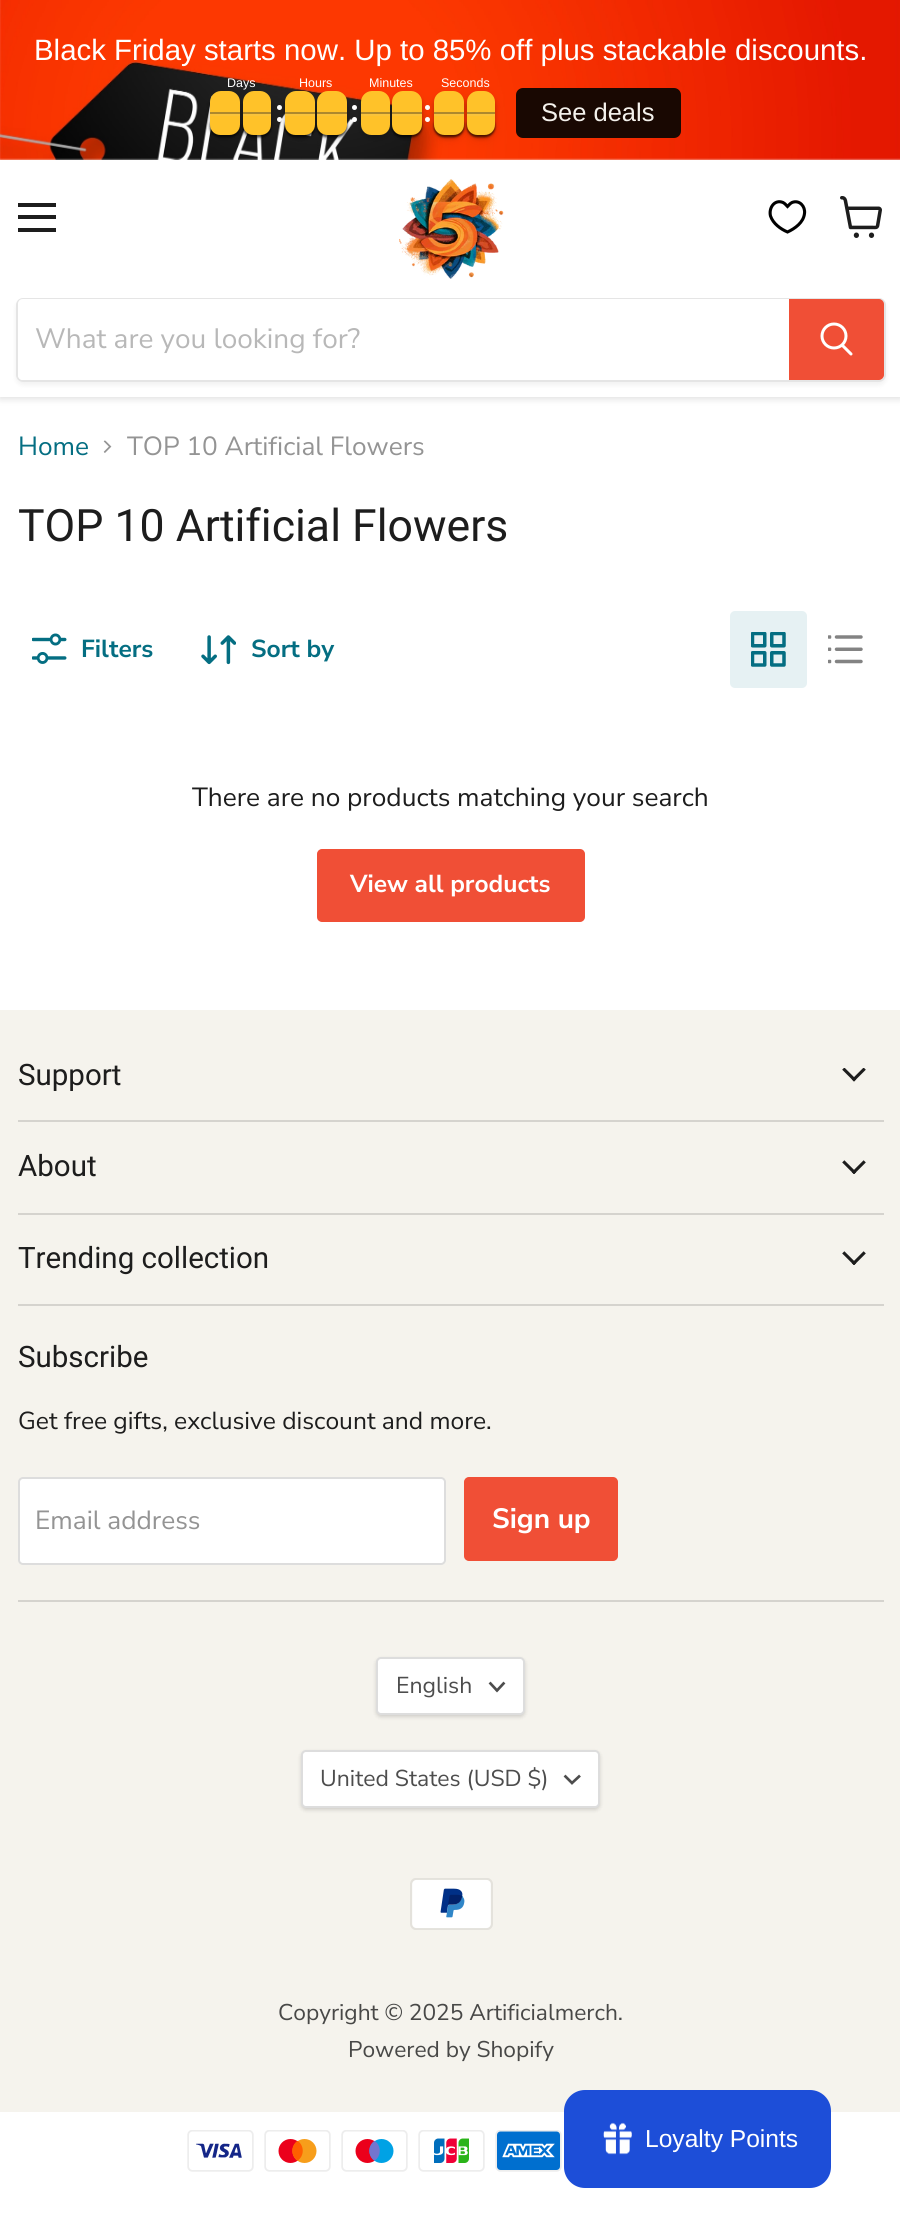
#include <cairo.h>
#include <math.h>
#include <stddef.h>


static void rgb(cairo_t *cr, int r, int g, int b)
{
	cairo_set_source_rgb(cr, r / 255.0, g / 255.0, b / 255.0);
}

static void face(cairo_t *cr, const char *family, double size, int italic, int bold)
{
	cairo_select_font_face(cr, family, italic ? CAIRO_FONT_SLANT_ITALIC : CAIRO_FONT_SLANT_NORMAL,
		bold ? CAIRO_FONT_WEIGHT_BOLD : CAIRO_FONT_WEIGHT_NORMAL);
	cairo_set_font_size(cr, size);
}

static void label(cairo_t *cr, double x, double y, const char *s)
{
	cairo_move_to(cr, x, y);
	cairo_show_text(cr, s);
}

static void rect(cairo_t *cr, double x, double y, double w, double h)
{
	cairo_rectangle(cr, x, y, w, h);
	cairo_fill(cr);
}

static void rrect(cairo_t *cr, double x, double y, double w, double h, double r)
{
	cairo_new_sub_path(cr);
	cairo_arc(cr, x + w - r, y + h - r, r, 0, M_PI / 2);
	cairo_arc(cr, x + r, y + h - r, r, M_PI / 2, M_PI);
	cairo_arc(cr, x + r, y + r, r, M_PI, 1.5 * M_PI);
	cairo_arc(cr, x + w - r, y + r, r, 1.5 * M_PI, 2 * M_PI);
	cairo_close_path(cr);
}

static void soft_shadow(cairo_t *cr, double x, double y, double w, double h, double r, double blur, double alpha)
{
	cairo_push_group_with_content(cr, CAIRO_CONTENT_ALPHA);
	cairo_set_operator(cr, CAIRO_OPERATOR_SOURCE);
	for (int i = 15; i >= -15 && fmin(w, h) + blur * i / 3 > 0; i -= 2) {
		double e = blur * i / 6;
		cairo_set_source_rgba(cr, 0, 0, 0, alpha * erfc((i - 1) / 8.5) / 2);
		rrect(cr, x - e, y - e, w + 2 * e, h + 2 * e, fmax(0, fmin(r + e + blur * .6, fmin(w, h) / 2 + e)));
		cairo_fill(cr);
	}
	cairo_pattern_t *soft = cairo_pop_group(cr);
	cairo_mask(cr, soft);
	cairo_pattern_destroy(soft);
}

static void image(cairo_t *cr, const char *path, double x, double y, double w, double h)
{
	cairo_surface_t *image = cairo_image_surface_create_from_png(path);
	cairo_save(cr);
	cairo_set_source_surface(cr, image, x, y);
	cairo_rectangle(cr, x, y, w, h);
	cairo_fill(cr);
	cairo_restore(cr);
	cairo_surface_destroy(image);
}

static void draw(cairo_t *cr) {
	rgb(cr, 255, 255, 255);
	cairo_paint(cr);
	rgb(cr, 128, 128, 128);
	soft_shadow(cr, 0, 161, 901, 238, 0, 3.5, 0.25);
	rgb(cr, 255, 255, 255);
	rect(cr, 0, 159, 900, 238);
	image(cr, "image0.png", 0, 0, 900, 160);
	face(cr, "Liberation Sans", 29.4, 0, 0);
	label(cr, 34, 60, "Black Friday starts now. Up to 85% off plus stackable discounts.");
	rgb(cr, 0, 0, 0);
	soft_shadow(cr, 243, 96, 28, 44, 11, 7, 0.05);
	soft_shadow(cr, 243, 95, 28, 43, 11, 2.5, 0.24);
	soft_shadow(cr, 243, 116, 28, 21, 10.5, 1, 0.4);
	soft_shadow(cr, 210, 95, 30, 43, 11, 2.5, 0.24);
	soft_shadow(cr, 210, 116, 30, 21, 10.5, 1, 0.4);
	rgb(cr, 255, 194, 41);
	cairo_new_path(cr);
	cairo_move_to(cr, 221, 91);
	cairo_line_to(cr, 229, 91);
	cairo_curve_to(cr, 235, 91, 240, 96, 240, 102);
	cairo_line_to(cr, 240, 114);
	cairo_line_to(cr, 210, 114);
	cairo_line_to(cr, 210, 102);
	cairo_curve_to(cr, 210, 96, 215, 91, 221, 91);
	cairo_close_path(cr);
	cairo_fill(cr);
	cairo_set_source_rgba(cr, 0.2, 0.2, 0.2, 0.4);
	rect(cr, 210, 112, 30, 2);
	rgb(cr, 0, 0, 0);
	soft_shadow(cr, 210, 116, 30, 21, 10.5, 1, 0.4);
	rgb(cr, 255, 255, 255);
	cairo_arc(cr, 279.5, 107.5, 2.5, 0, 2 * M_PI);
	cairo_fill(cr);
	cairo_arc(cr, 279.5, 119.5, 2.5, 0, 2 * M_PI);
	cairo_fill(cr);
	rgb(cr, 0, 0, 0);
	soft_shadow(cr, 285, 96, 30, 44, 11, 7, 0.05);
	rgb(cr, 255, 194, 41);
	cairo_new_path(cr);
	cairo_move_to(cr, 254, 91);
	cairo_line_to(cr, 260, 91);
	cairo_curve_to(cr, 266, 91, 271, 96, 271, 102);
	cairo_line_to(cr, 271, 114);
	cairo_line_to(cr, 243, 114);
	cairo_line_to(cr, 243, 102);
	cairo_curve_to(cr, 243, 96, 248, 91, 254, 91);
	cairo_close_path(cr);
	cairo_fill(cr);
	cairo_set_source_rgba(cr, 0.2, 0.2, 0.2, 0.4);
	rect(cr, 243, 112, 28, 2);
	rgb(cr, 255, 194, 41);
	cairo_new_path(cr);
	cairo_move_to(cr, 210, 114);
	cairo_line_to(cr, 240, 114);
	cairo_line_to(cr, 240, 124.5);
	cairo_curve_to(cr, 240, 130.5, 235.5, 135, 229.5, 135);
	cairo_line_to(cr, 220.5, 135);
	cairo_curve_to(cr, 214.5, 135, 210, 130.5, 210, 124.5);
	cairo_close_path(cr);
	cairo_fill(cr);
	cairo_set_source_rgba(cr, 0.8, 0.8, 0.8, 0.1);
	rect(cr, 210, 114, 30, 2);
	rgb(cr, 0, 0, 0);
	soft_shadow(cr, 243, 116, 28, 21, 10.5, 1, 0.4);
	rgb(cr, 255, 194, 41);
	cairo_new_path(cr);
	cairo_move_to(cr, 243, 114);
	cairo_line_to(cr, 271, 114);
	cairo_line_to(cr, 271, 124.5);
	cairo_curve_to(cr, 271, 130.5, 266.5, 135, 260.5, 135);
	cairo_line_to(cr, 253.5, 135);
	cairo_curve_to(cr, 247.5, 135, 243, 130.5, 243, 124.5);
	cairo_close_path(cr);
	cairo_fill(cr);
	cairo_set_source_rgba(cr, 0.8, 0.8, 0.8, 0.1);
	rect(cr, 243, 114, 28, 2);
	face(cr, "Liberation Sans", 12.5, 0, 0);
	rgb(cr, 255, 255, 255);
	label(cr, 227, 87, "Days");
	rgb(cr, 0, 0, 0);
	soft_shadow(cr, 285, 95, 30, 43, 11, 2.5, 0.24);
	soft_shadow(cr, 285, 116, 30, 21, 10.5, 1, 0.4);
	soft_shadow(cr, 317, 96, 30, 44, 11, 7, 0.05);
	soft_shadow(cr, 317, 95, 30, 43, 11, 2.5, 0.24);
	soft_shadow(cr, 317, 116, 30, 21, 10.5, 1, 0.4);
	rgb(cr, 255, 194, 41);
	cairo_new_path(cr);
	cairo_move_to(cr, 296, 91);
	cairo_line_to(cr, 304, 91);
	cairo_curve_to(cr, 310, 91, 315, 96, 315, 102);
	cairo_line_to(cr, 315, 114);
	cairo_line_to(cr, 285, 114);
	cairo_line_to(cr, 285, 102);
	cairo_curve_to(cr, 285, 96, 290, 91, 296, 91);
	cairo_close_path(cr);
	cairo_fill(cr);
	cairo_set_source_rgba(cr, 0.2, 0.2, 0.2, 0.4);
	rect(cr, 285, 112, 30, 2);
	rgb(cr, 0, 0, 0);
	soft_shadow(cr, 285, 116, 30, 21, 10.5, 1, 0.4);
	rgb(cr, 255, 194, 41);
	cairo_new_path(cr);
	cairo_move_to(cr, 285, 114);
	cairo_line_to(cr, 315, 114);
	cairo_line_to(cr, 315, 124.5);
	cairo_curve_to(cr, 315, 130.5, 310.5, 135, 304.5, 135);
	cairo_line_to(cr, 295.5, 135);
	cairo_curve_to(cr, 289.5, 135, 285, 130.5, 285, 124.5);
	cairo_close_path(cr);
	cairo_fill(cr);
	cairo_set_source_rgba(cr, 0.8, 0.8, 0.8, 0.1);
	rect(cr, 285, 114, 30, 2);
	rgb(cr, 255, 194, 41);
	cairo_new_path(cr);
	cairo_move_to(cr, 328, 91);
	cairo_line_to(cr, 336, 91);
	cairo_curve_to(cr, 342, 91, 347, 96, 347, 102);
	cairo_line_to(cr, 347, 114);
	cairo_line_to(cr, 317, 114);
	cairo_line_to(cr, 317, 102);
	cairo_curve_to(cr, 317, 96, 322, 91, 328, 91);
	cairo_close_path(cr);
	cairo_fill(cr);
	cairo_set_source_rgba(cr, 0.2, 0.2, 0.2, 0.4);
	rect(cr, 317, 112, 30, 2);
	rgb(cr, 0, 0, 0);
	soft_shadow(cr, 317, 116, 30, 21, 10.5, 1, 0.4);
	rgb(cr, 255, 194, 41);
	cairo_new_path(cr);
	cairo_move_to(cr, 317, 114);
	cairo_line_to(cr, 347, 114);
	cairo_line_to(cr, 347, 124.5);
	cairo_curve_to(cr, 347, 130.5, 342.5, 135, 336.5, 135);
	cairo_line_to(cr, 327.5, 135);
	cairo_curve_to(cr, 321.5, 135, 317, 130.5, 317, 124.5);
	cairo_close_path(cr);
	cairo_fill(cr);
	cairo_set_source_rgba(cr, 0.8, 0.8, 0.8, 0.1);
	rect(cr, 317, 114, 30, 2);
	rgb(cr, 255, 255, 255);
	label(cr, 299, 87, "Hours");
	rgb(cr, 0, 0, 0);
	soft_shadow(cr, 392, 96, 30, 44, 11, 7, 0.05);
	soft_shadow(cr, 392, 95, 30, 43, 11, 2.5, 0.24);
	rgb(cr, 255, 255, 255);
	cairo_arc(cr, 427.5, 119.5, 2.5, 0, 2 * M_PI);
	cairo_fill(cr);
	rgb(cr, 0, 0, 0);
	soft_shadow(cr, 392, 116, 30, 21, 10.5, 1, 0.4);
	rgb(cr, 255, 255, 255);
	cairo_arc(cr, 354.5, 107.5, 2.5, 0, 2 * M_PI);
	cairo_fill(cr);
	cairo_arc(cr, 354.5, 119.5, 2.5, 0, 2 * M_PI);
	cairo_fill(cr);
	rgb(cr, 0, 0, 0);
	soft_shadow(cr, 361, 95, 29, 43, 11, 2.5, 0.24);
	rgb(cr, 255, 255, 255);
	cairo_arc(cr, 427.5, 107.5, 2.5, 0, 2 * M_PI);
	cairo_fill(cr);
	rgb(cr, 0, 0, 0);
	soft_shadow(cr, 434, 96, 30, 44, 11, 7, 0.05);
	rgb(cr, 255, 194, 41);
	cairo_new_path(cr);
	cairo_move_to(cr, 403, 91);
	cairo_line_to(cr, 411, 91);
	cairo_curve_to(cr, 417, 91, 422, 96, 422, 102);
	cairo_line_to(cr, 422, 114);
	cairo_line_to(cr, 392, 114);
	cairo_line_to(cr, 392, 102);
	cairo_curve_to(cr, 392, 96, 397, 91, 403, 91);
	cairo_close_path(cr);
	cairo_fill(cr);
	cairo_set_source_rgba(cr, 0.2, 0.2, 0.2, 0.4);
	rect(cr, 392, 112, 30, 2);
	rgb(cr, 255, 194, 41);
	cairo_new_path(cr);
	cairo_move_to(cr, 372, 91);
	cairo_line_to(cr, 379, 91);
	cairo_curve_to(cr, 385, 91, 390, 96, 390, 102);
	cairo_line_to(cr, 390, 114);
	cairo_line_to(cr, 361, 114);
	cairo_line_to(cr, 361, 102);
	cairo_curve_to(cr, 361, 96, 366, 91, 372, 91);
	cairo_close_path(cr);
	cairo_fill(cr);
	cairo_set_source_rgba(cr, 0.2, 0.2, 0.2, 0.4);
	rect(cr, 361, 112, 29, 2);
	rgb(cr, 255, 194, 41);
	cairo_new_path(cr);
	cairo_move_to(cr, 361, 114);
	cairo_line_to(cr, 390, 114);
	cairo_line_to(cr, 390, 124.5);
	cairo_curve_to(cr, 390, 130.5, 385.5, 135, 379.5, 135);
	cairo_line_to(cr, 371.5, 135);
	cairo_curve_to(cr, 365.5, 135, 361, 130.5, 361, 124.5);
	cairo_close_path(cr);
	cairo_fill(cr);
	cairo_set_source_rgba(cr, 0.8, 0.8, 0.8, 0.1);
	rect(cr, 361, 114, 29, 2);
	rgb(cr, 0, 0, 0);
	soft_shadow(cr, 392, 116, 30, 21, 10.5, 1, 0.4);
	rgb(cr, 255, 194, 41);
	cairo_new_path(cr);
	cairo_move_to(cr, 392, 114);
	cairo_line_to(cr, 422, 114);
	cairo_line_to(cr, 422, 124.5);
	cairo_curve_to(cr, 422, 130.5, 417.5, 135, 411.5, 135);
	cairo_line_to(cr, 402.5, 135);
	cairo_curve_to(cr, 396.5, 135, 392, 130.5, 392, 124.5);
	cairo_close_path(cr);
	cairo_fill(cr);
	cairo_set_source_rgba(cr, 0.8, 0.8, 0.8, 0.1);
	rect(cr, 392, 114, 30, 2);
	rgb(cr, 255, 255, 255);
	label(cr, 369, 87, "Minutes");
	rgb(cr, 0, 0, 0);
	soft_shadow(cr, 434, 95, 30, 43, 11, 2.5, 0.24);
	soft_shadow(cr, 434, 116, 30, 21, 10.5, 1, 0.4);
	rgb(cr, 25, 8, 2);
	rrect(cr, 516, 88, 165, 50, 7);
	cairo_fill(cr);
	rgb(cr, 0, 0, 0);
	soft_shadow(cr, 467, 96, 28, 44, 11, 7, 0.05);
	soft_shadow(cr, 467, 95, 28, 43, 11, 2.5, 0.24);
	soft_shadow(cr, 467, 116, 28, 21, 10.5, 1, 0.4);
	rgb(cr, 255, 194, 41);
	cairo_new_path(cr);
	cairo_move_to(cr, 445, 91);
	cairo_line_to(cr, 453, 91);
	cairo_curve_to(cr, 459, 91, 464, 96, 464, 102);
	cairo_line_to(cr, 464, 114);
	cairo_line_to(cr, 434, 114);
	cairo_line_to(cr, 434, 102);
	cairo_curve_to(cr, 434, 96, 439, 91, 445, 91);
	cairo_close_path(cr);
	cairo_fill(cr);
	cairo_set_source_rgba(cr, 0.2, 0.2, 0.2, 0.4);
	rect(cr, 434, 112, 30, 2);
	rgb(cr, 0, 0, 0);
	soft_shadow(cr, 434, 116, 30, 21, 10.5, 1, 0.4);
	rgb(cr, 255, 194, 41);
	cairo_new_path(cr);
	cairo_move_to(cr, 434, 114);
	cairo_line_to(cr, 464, 114);
	cairo_line_to(cr, 464, 124.5);
	cairo_curve_to(cr, 464, 130.5, 459.5, 135, 453.5, 135);
	cairo_line_to(cr, 444.5, 135);
	cairo_curve_to(cr, 438.5, 135, 434, 130.5, 434, 124.5);
	cairo_close_path(cr);
	cairo_fill(cr);
	cairo_set_source_rgba(cr, 0.8, 0.8, 0.8, 0.1);
	rect(cr, 434, 114, 30, 2);
	rgb(cr, 255, 194, 41);
	cairo_new_path(cr);
	cairo_move_to(cr, 478, 91);
	cairo_line_to(cr, 484, 91);
	cairo_curve_to(cr, 490, 91, 495, 96, 495, 102);
	cairo_line_to(cr, 495, 114);
	cairo_line_to(cr, 467, 114);
	cairo_line_to(cr, 467, 102);
	cairo_curve_to(cr, 467, 96, 472, 91, 478, 91);
	cairo_close_path(cr);
	cairo_fill(cr);
	cairo_set_source_rgba(cr, 0.2, 0.2, 0.2, 0.4);
	rect(cr, 467, 112, 28, 2);
	rgb(cr, 0, 0, 0);
	soft_shadow(cr, 467, 116, 28, 21, 10.5, 1, 0.4);
	rgb(cr, 255, 194, 41);
	cairo_new_path(cr);
	cairo_move_to(cr, 467, 114);
	cairo_line_to(cr, 495, 114);
	cairo_line_to(cr, 495, 124.5);
	cairo_curve_to(cr, 495, 130.5, 490.5, 135, 484.5, 135);
	cairo_line_to(cr, 477.5, 135);
	cairo_curve_to(cr, 471.5, 135, 467, 130.5, 467, 124.5);
	cairo_close_path(cr);
	cairo_fill(cr);
	cairo_set_source_rgba(cr, 0.8, 0.8, 0.8, 0.1);
	rect(cr, 467, 114, 28, 2);
	rgb(cr, 255, 255, 255);
	label(cr, 441, 87, "Seconds");
	face(cr, "Liberation Sans", 25.5, 0, 0);
	rgb(cr, 244, 241, 236);
	label(cr, 541, 121, "See deals");
	rgb(cr, 29, 29, 29);
	rect(cr, 18, 203, 38, 4);
	rect(cr, 18, 215, 38, 4);
	rect(cr, 18, 228, 38, 4);
	cairo_new_path(cr);
	cairo_move_to(cr, 787.5, 232);
	cairo_curve_to(cr, 780.5, 229, 773, 223.5, 770.5, 216);
	cairo_curve_to(cr, 768.5, 208, 774.5, 199, 783, 202.5);
	cairo_curve_to(cr, 785, 203.5, 786, 205, 787.5, 206.5);
	cairo_curve_to(cr, 789, 205, 790, 203.5, 792, 202.5);
	cairo_curve_to(cr, 799.5, 199.5, 805.5, 206.5, 804.5, 213.5);
	cairo_curve_to(cr, 803.5, 222.5, 795, 228.5, 787.5, 232);
	cairo_close_path(cr);
	rgb(cr, 0, 0, 0);
	cairo_set_line_width(cr, 3.1);
	cairo_stroke(cr);
	image(cr, "image1.png", 840, 196, 42, 42);
	image(cr, "image2.png", 399, 179, 105, 100);
	cairo_save(cr);
	cairo_set_fill_rule(cr, CAIRO_FILL_RULE_EVEN_ODD);
	cairo_new_path(cr);
	cairo_move_to(cr, 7, 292);
	cairo_line_to(cr, 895, 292);
	cairo_line_to(cr, 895, 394);
	cairo_line_to(cr, 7, 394);
	cairo_close_path(cr);
	cairo_move_to(cr, 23, 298);
	cairo_line_to(cr, 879, 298);
	cairo_curve_to(cr, 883, 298, 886, 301, 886, 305);
	cairo_line_to(cr, 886, 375);
	cairo_curve_to(cr, 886, 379, 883, 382, 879, 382);
	cairo_line_to(cr, 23, 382);
	cairo_curve_to(cr, 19, 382, 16, 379, 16, 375);
	cairo_line_to(cr, 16, 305);
	cairo_curve_to(cr, 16, 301, 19, 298, 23, 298);
	cairo_close_path(cr);
	cairo_clip(cr);
	rgb(cr, 128, 128, 128);
	soft_shadow(cr, 16, 301, 870, 84, 7, 2.5, 0.11);
	cairo_restore(cr);
	rrect(cr, 17, 299, 868, 82, 6);
	cairo_set_source_rgba(cr, 0.502, 0.502, 0.502, 0.2);
	cairo_set_line_width(cr, 2);
	cairo_stroke(cr);
	rgb(cr, 255, 255, 255);
	cairo_new_path(cr);
	cairo_move_to(cr, 23, 299);
	cairo_line_to(cr, 789, 299);
	cairo_line_to(cr, 789, 380);
	cairo_line_to(cr, 23, 380);
	cairo_curve_to(cr, 20, 380, 18, 378, 18, 375);
	cairo_line_to(cr, 18, 304);
	cairo_curve_to(cr, 18, 301, 20, 299, 23, 299);
	cairo_close_path(cr);
	cairo_fill(cr);
	face(cr, "Nunito Sans", 28, 0, 0);
	rgb(cr, 184, 184, 184);
	label(cr, 35, 348, "What are you looking for?");
	rgb(cr, 240, 79, 54);
	cairo_new_path(cr);
	cairo_move_to(cr, 790, 300);
	cairo_line_to(cr, 879, 300);
	cairo_curve_to(cr, 881, 300, 883, 302, 883, 304);
	cairo_line_to(cr, 883, 375);
	cairo_curve_to(cr, 883, 377, 881, 379, 879, 379);
	cairo_line_to(cr, 790, 379);
	cairo_close_path(cr);
	cairo_fill_preserve(cr);
	cairo_stroke(cr);
	cairo_new_path(cr);
	cairo_move_to(cr, 851, 354);
	cairo_line_to(cr, 842.5, 345.5);
	rgb(cr, 255, 255, 255);
	cairo_set_line_width(cr, 3);
	cairo_set_line_cap(cr, CAIRO_LINE_CAP_ROUND);
	cairo_stroke(cr);
	cairo_arc(cr, 834, 336, 12, 0, 2 * M_PI);
	cairo_set_line_cap(cr, CAIRO_LINE_CAP_BUTT);
	cairo_stroke(cr);
	face(cr, "Nunito Sans", 26.25, 0, 0);
	rgb(cr, 4, 110, 130);
	label(cr, 18, 455, "Home");
	image(cr, "image3.png", 103, 440, 9, 13);
	rgb(cr, 148, 148, 148);
	label(cr, 127, 455, "TOP 10 Artificial Flowers");
	face(cr, "Roboto", 44.6, 0, 0);
	rgb(cr, 29, 29, 29);
	label(cr, 18, 541, "TOP 10 Artificial Flowers");
	image(cr, "image4.png", 32, 633, 35, 31);
	face(cr, "Nunito Sans", 24.6, 0, 1);
	rgb(cr, 4, 110, 130);
	label(cr, 81, 657, "Filters");
	image(cr, "image5.png", 201, 635, 35, 30);
	label(cr, 251, 657, "Sort by");
	rgb(cr, 230, 241, 243);
	rrect(cr, 730, 611, 77, 77, 5);
	cairo_fill(cr);
	image(cr, "image6.png", 751, 632, 35, 35);
	image(cr, "image7.png", 828, 635, 35, 29);
	face(cr, "Nunito Sans", 26.25, 0, 0);
	rgb(cr, 29, 29, 29);
	label(cr, 192, 806, "There are no products matching your search");
	rgb(cr, 240, 79, 54);
	rrect(cr, 318, 850, 266, 71, 4);
	cairo_fill_preserve(cr);
	cairo_set_line_width(cr, 2);
	cairo_stroke(cr);
	face(cr, "Nunito Sans", 24.5, 0, 1);
	rgb(cr, 255, 255, 255);
	label(cr, 350, 892, "View all products");
	rgb(cr, 245, 243, 237);
	rect(cr, 0, 1010, 900, 1102);
	rgb(cr, 213, 211, 206);
	rect(cr, 18, 1120, 866, 2);
	face(cr, "Roboto", 29.5, 0, 0);
	rgb(cr, 29, 29, 29);
	label(cr, 18, 1085, "Support");
	image(cr, "image8.png", 842, 1068, 24, 14);
	rgb(cr, 213, 211, 206);
	rect(cr, 18, 1213, 866, 2);
	rgb(cr, 29, 29, 29);
	label(cr, 18, 1176, "About");
	image(cr, "image9.png", 842, 1160, 24, 14);
	rgb(cr, 213, 211, 206);
	rect(cr, 18, 1304, 866, 2);
	rgb(cr, 29, 29, 29);
	label(cr, 18, 1268, "Trending collection");
	image(cr, "image9.png", 842, 1251, 24, 14);
	rgb(cr, 213, 211, 206);
	rect(cr, 18, 1600, 866, 2);
	rgb(cr, 29, 29, 29);
	label(cr, 18, 1367, "Subscribe");
	face(cr, "Nunito Sans", 24.6, 0, 0);
	label(cr, 18, 1429, "Get free gifts, exclusive discount and more.");
	rgb(cr, 255, 255, 255);
	rrect(cr, 19, 1478, 426, 86, 4);
	cairo_fill_preserve(cr);
	rgb(cr, 221, 221, 221);
	cairo_stroke(cr);
	face(cr, "Nunito Sans", 26.25, 0, 0);
	rgb(cr, 148, 148, 148);
	label(cr, 35, 1529, "Email address");
	rgb(cr, 240, 79, 54);
	rrect(cr, 465, 1478, 152, 82, 4);
	cairo_fill_preserve(cr);
	cairo_stroke(cr);
	face(cr, "Nunito Sans", 28, 0, 1);
	rgb(cr, 255, 255, 255);
	label(cr, 492, 1528, "Sign up");
	rgb(cr, 0, 0, 0);
	soft_shadow(cr, 376, 1659, 149, 58, 5, 2, 0.15);
	rgb(cr, 255, 255, 255);
	rrect(cr, 377, 1658, 147, 56, 4);
	cairo_fill_preserve(cr);
	rgb(cr, 221, 221, 221);
	cairo_stroke(cr);
	face(cr, "Nunito Sans", 23, 0, 0);
	rgb(cr, 77, 77, 77);
	label(cr, 396, 1693, "English");
	cairo_new_path(cr);
	cairo_move_to(cr, 497, 1690.5);
	cairo_line_to(cr, 503.5, 1683.5);
	cairo_move_to(cr, 497, 1690.5);
	cairo_line_to(cr, 490.5, 1683.5);
	cairo_set_line_width(cr, 2.7);
	cairo_set_line_cap(cr, CAIRO_LINE_CAP_SQUARE);
	cairo_stroke(cr);
	rgb(cr, 0, 0, 0);
	soft_shadow(cr, 301, 1752, 299, 58, 5, 2, 0.15);
	rgb(cr, 255, 255, 255);
	rrect(cr, 302, 1751, 297, 56, 4);
	cairo_fill_preserve(cr);
	rgb(cr, 221, 221, 221);
	cairo_set_line_width(cr, 2);
	cairo_set_line_cap(cr, CAIRO_LINE_CAP_BUTT);
	cairo_stroke(cr);
	rgb(cr, 77, 77, 77);
	label(cr, 320, 1786, "United States (USD $)");
	cairo_new_path(cr);
	cairo_move_to(cr, 572, 1783);
	cairo_line_to(cr, 579, 1776.5);
	cairo_move_to(cr, 572, 1783);
	cairo_line_to(cr, 565.5, 1776.5);
	cairo_set_line_width(cr, 2.7);
	cairo_set_line_cap(cr, CAIRO_LINE_CAP_SQUARE);
	cairo_stroke(cr);
	image(cr, "image10.png", 410, 1878, 83, 52);
	face(cr, "Nunito Sans", 22.75, 0, 0);
	rgb(cr, 72, 72, 71);
	label(cr, 278, 2020, "Copyright © 2025 Artificialmerch.");
	label(cr, 348, 2057, "Powered by Shopify");
	image(cr, "image11.png", 187, 2130, 67, 42);
	image(cr, "image12.png", 264, 2130, 67, 42);
	image(cr, "image13.png", 341, 2130, 67, 42);
	image(cr, "image14.png", 418, 2130, 67, 42);
	image(cr, "image15.png", 495, 2130, 67, 42);
	rgb(cr, 29, 78, 216);
	rrect(cr, 564, 2090, 267, 98, 21);
	cairo_fill(cr);
	image(cr, "image16.png", 603, 2122, 29, 33);
	face(cr, "Liberation Sans", 24.6, 0, 0);
	rgb(cr, 255, 255, 255);
	label(cr, 645, 2147, "Loyalty Points");
}

int main(void) {
	cairo_surface_t *surface = cairo_image_surface_create(CAIRO_FORMAT_RGB24, 900, 2229);
	cairo_t *cr = cairo_create(surface);
	cairo_font_options_t *options = cairo_font_options_create();
	cairo_font_options_set_hint_metrics(options, CAIRO_HINT_METRICS_OFF);
	cairo_font_options_set_hint_style(options, CAIRO_HINT_STYLE_NONE);
	cairo_set_font_options(cr, options);
	cairo_set_miter_limit(cr, 4);
	draw(cr);
	cairo_surface_write_to_png(surface, "render.png");
	cairo_font_options_destroy(options);
	cairo_destroy(cr);
	cairo_surface_destroy(surface);
	return 0;
}
